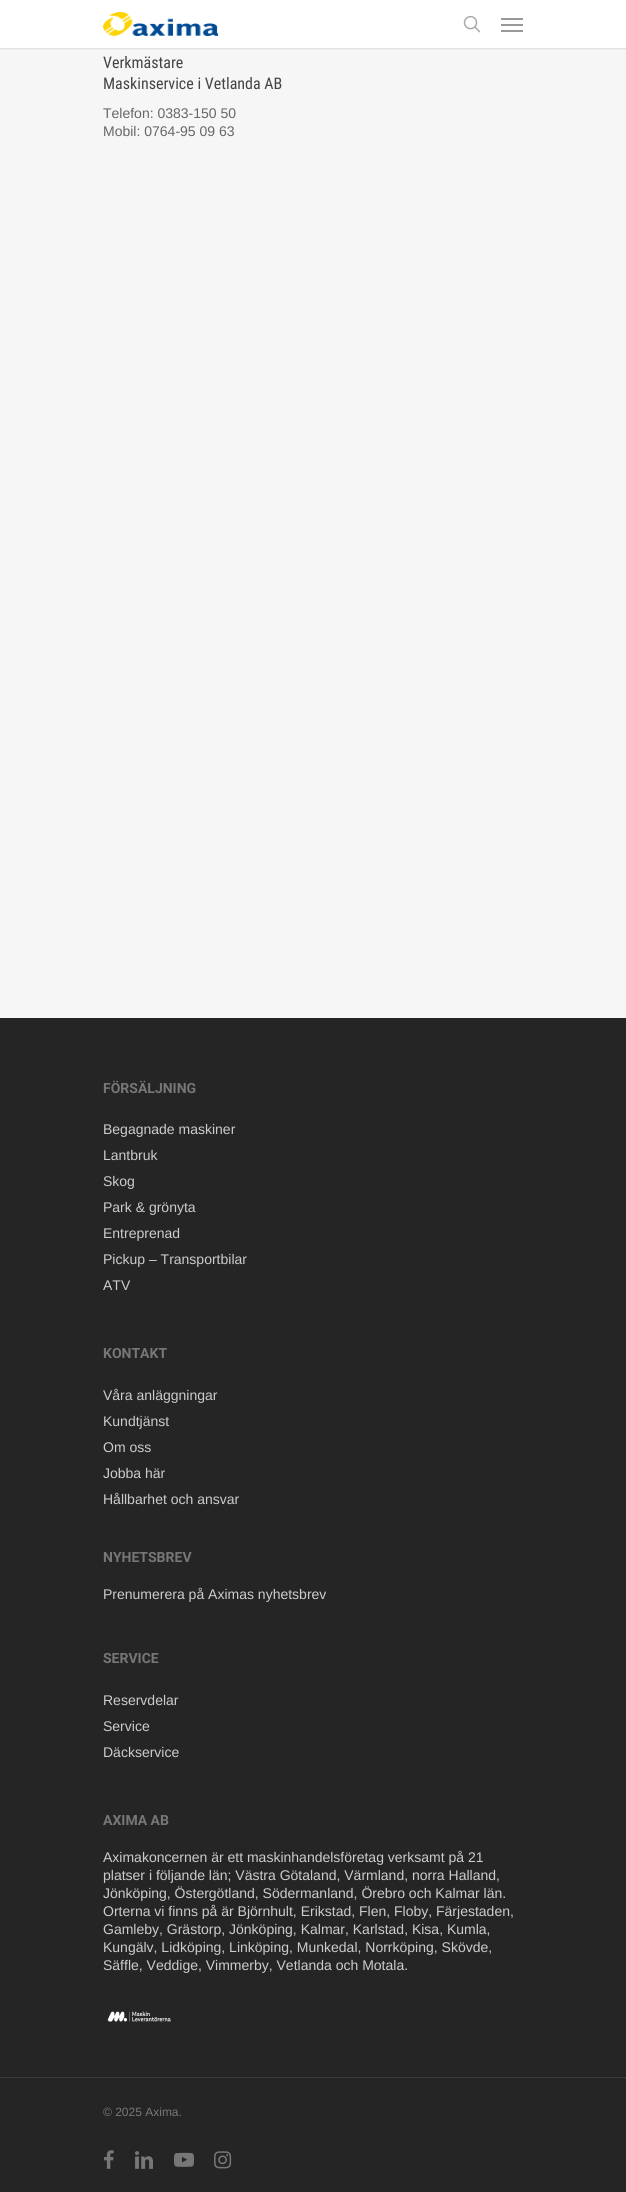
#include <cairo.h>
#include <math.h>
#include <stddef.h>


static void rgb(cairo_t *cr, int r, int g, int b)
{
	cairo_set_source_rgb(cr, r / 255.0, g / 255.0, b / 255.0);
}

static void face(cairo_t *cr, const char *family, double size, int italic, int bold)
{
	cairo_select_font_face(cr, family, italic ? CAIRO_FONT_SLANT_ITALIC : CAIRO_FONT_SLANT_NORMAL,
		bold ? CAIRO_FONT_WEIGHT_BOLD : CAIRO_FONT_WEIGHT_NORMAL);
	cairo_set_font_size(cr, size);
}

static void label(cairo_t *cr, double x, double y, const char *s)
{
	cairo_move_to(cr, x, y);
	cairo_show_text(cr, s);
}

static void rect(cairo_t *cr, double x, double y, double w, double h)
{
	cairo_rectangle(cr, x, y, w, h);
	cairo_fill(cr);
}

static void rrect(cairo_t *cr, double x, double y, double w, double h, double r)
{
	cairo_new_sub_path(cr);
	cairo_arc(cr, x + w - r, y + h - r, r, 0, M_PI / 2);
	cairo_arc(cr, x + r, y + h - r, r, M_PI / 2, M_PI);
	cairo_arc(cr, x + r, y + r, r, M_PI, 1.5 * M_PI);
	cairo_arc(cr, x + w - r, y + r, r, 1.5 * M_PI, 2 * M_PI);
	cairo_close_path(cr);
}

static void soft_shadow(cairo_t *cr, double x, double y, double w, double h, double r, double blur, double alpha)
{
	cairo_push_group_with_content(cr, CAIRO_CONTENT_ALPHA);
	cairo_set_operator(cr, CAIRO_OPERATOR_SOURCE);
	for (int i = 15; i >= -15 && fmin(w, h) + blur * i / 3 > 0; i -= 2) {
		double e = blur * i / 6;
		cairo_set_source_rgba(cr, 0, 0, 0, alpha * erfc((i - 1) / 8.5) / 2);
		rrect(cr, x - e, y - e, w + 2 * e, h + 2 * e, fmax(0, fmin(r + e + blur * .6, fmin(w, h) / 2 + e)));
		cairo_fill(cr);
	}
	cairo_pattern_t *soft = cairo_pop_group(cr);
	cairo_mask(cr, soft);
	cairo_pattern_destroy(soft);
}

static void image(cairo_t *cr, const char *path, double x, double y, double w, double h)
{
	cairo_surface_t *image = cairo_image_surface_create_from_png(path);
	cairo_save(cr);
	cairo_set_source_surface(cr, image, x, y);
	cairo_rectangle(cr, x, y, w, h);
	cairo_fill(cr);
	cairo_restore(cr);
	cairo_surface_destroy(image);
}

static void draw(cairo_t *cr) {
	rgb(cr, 255, 255, 255);
	cairo_paint(cr);
	rgb(cr, 246, 246, 246);
	rect(cr, 0, 48, 626, 970);
	cairo_save(cr);
	cairo_rectangle(cr, 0, 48, 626, 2);
	cairo_clip(cr);
	rgb(cr, 0, 0, 0);
	soft_shadow(cr, 0, 0, 626, 48, 0, 1.5, 0.22);
	cairo_restore(cr);
	image(cr, "image0.png", 103, 12, 115, 24);
	image(cr, "image1.png", 463, 15, 18, 18);
	rgb(cr, 153, 153, 153);
	rect(cr, 501, 18, 22, 2);
	rect(cr, 501, 30, 22, 2);
	rect(cr, 501, 24, 22, 2);
	face(cr, "Roboto Condensed", 16, 0, 0);
	rgb(cr, 68, 68, 68);
	label(cr, 103, 68, "Verkmästare");
	label(cr, 103, 89, "Maskinservice i Vetlanda AB");
	face(cr, "Arimo", 14, 0, 0);
	rgb(cr, 103, 103, 103);
	label(cr, 103, 118, "Telefon: 0383-150 50");
	label(cr, 103, 136, "Mobil: 0764-95 09 63");
	rgb(cr, 37, 37, 37);
	rect(cr, 0, 1018, 626, 1174);
	face(cr, "Roboto", 14, 0, 1);
	rgb(cr, 119, 119, 119);
	label(cr, 103, 1093, "FÖRSÄLJNING");
	face(cr, "Arimo", 14, 0, 0);
	rgb(cr, 204, 204, 204);
	label(cr, 103, 1134, "Begagnade maskiner");
	label(cr, 103, 1160, "Lantbruk");
	label(cr, 103, 1186, "Skog");
	label(cr, 103, 1212, "Park & grönyta");
	label(cr, 103, 1238, "Entreprenad");
	label(cr, 103, 1264, "Pickup – Transportbilar");
	label(cr, 103, 1290, "ATV");
	face(cr, "Roboto", 14, 0, 1);
	rgb(cr, 119, 119, 119);
	label(cr, 103, 1358, "KONTAKT");
	face(cr, "Arimo", 14, 0, 0);
	rgb(cr, 204, 204, 204);
	label(cr, 103, 1400, "Våra anläggningar");
	label(cr, 103, 1426, "Kundtjänst");
	label(cr, 103, 1452, "Om oss");
	label(cr, 103, 1478, "Jobba här");
	label(cr, 103, 1504, "Hållbarhet och ansvar");
	face(cr, "Roboto", 14, 0, 1);
	rgb(cr, 119, 119, 119);
	label(cr, 103, 1562, "NYHETSBREV");
	face(cr, "Arimo", 14, 0, 0);
	rgb(cr, 204, 204, 204);
	label(cr, 103, 1599, "Prenumerera på Aximas nyhetsbrev");
	face(cr, "Roboto", 14, 0, 1);
	rgb(cr, 119, 119, 119);
	label(cr, 103, 1663, "SERVICE");
	face(cr, "Arimo", 14, 0, 0);
	rgb(cr, 204, 204, 204);
	label(cr, 103, 1705, "Reservdelar");
	label(cr, 103, 1731, "Service");
	label(cr, 103, 1757, "Däckservice");
	face(cr, "Roboto", 14, 0, 1);
	rgb(cr, 119, 119, 119);
	label(cr, 103, 1825, "AXIMA AB");
	face(cr, "Arimo", 14, 0, 0);
	rgb(cr, 204, 204, 204);
	label(cr, 103, 1862, "Aximakoncernen är ett maskinhandelsföretag verksamt på 21");
	label(cr, 103, 1880, "platser i följande län; Västra Götaland, Värmland, norra Halland,");
	label(cr, 103, 1898, "Jönköping, Östergötland, Södermanland, Örebro och Kalmar län.");
	label(cr, 103, 1916, "Orterna vi finns på är Björnhult, Erikstad, Flen, Floby, Färjestaden,");
	label(cr, 103, 1934, "Gamleby, Grästorp, Jönköping, Kalmar, Karlstad, Kisa, Kumla,");
	label(cr, 103, 1952, "Kungälv, Lidköping, Linköping, Munkedal, Norrköping, Skövde,");
	label(cr, 103, 1970, "Säffle, Veddige, Vimmerby, Vetlanda och Motala.");
	image(cr, "image2.png", 107, 2011, 64, 11);
	rgb(cr, 59, 59, 59);
	rect(cr, 0, 2077, 626, 1);
	face(cr, "Arimo", 12, 0, 0);
	rgb(cr, 119, 119, 119);
	label(cr, 103, 2116, "© 2025 Axima.");
	image(cr, "image3.png", 104, 2150, 10, 19);
	image(cr, "image4.png", 135, 2151, 18, 18);
	image(cr, "image5.png", 174, 2152, 20, 15);
	image(cr, "image6.png", 214, 2151, 18, 18);
}

int main(void) {
	cairo_surface_t *surface = cairo_image_surface_create(CAIRO_FORMAT_RGB24, 626, 2192);
	cairo_t *cr = cairo_create(surface);
	cairo_font_options_t *options = cairo_font_options_create();
	cairo_font_options_set_hint_metrics(options, CAIRO_HINT_METRICS_OFF);
	cairo_font_options_set_hint_style(options, CAIRO_HINT_STYLE_NONE);
	cairo_set_font_options(cr, options);
	cairo_set_miter_limit(cr, 4);
	draw(cr);
	cairo_surface_write_to_png(surface, "render.png");
	cairo_font_options_destroy(options);
	cairo_destroy(cr);
	cairo_surface_destroy(surface);
	return 0;
}
